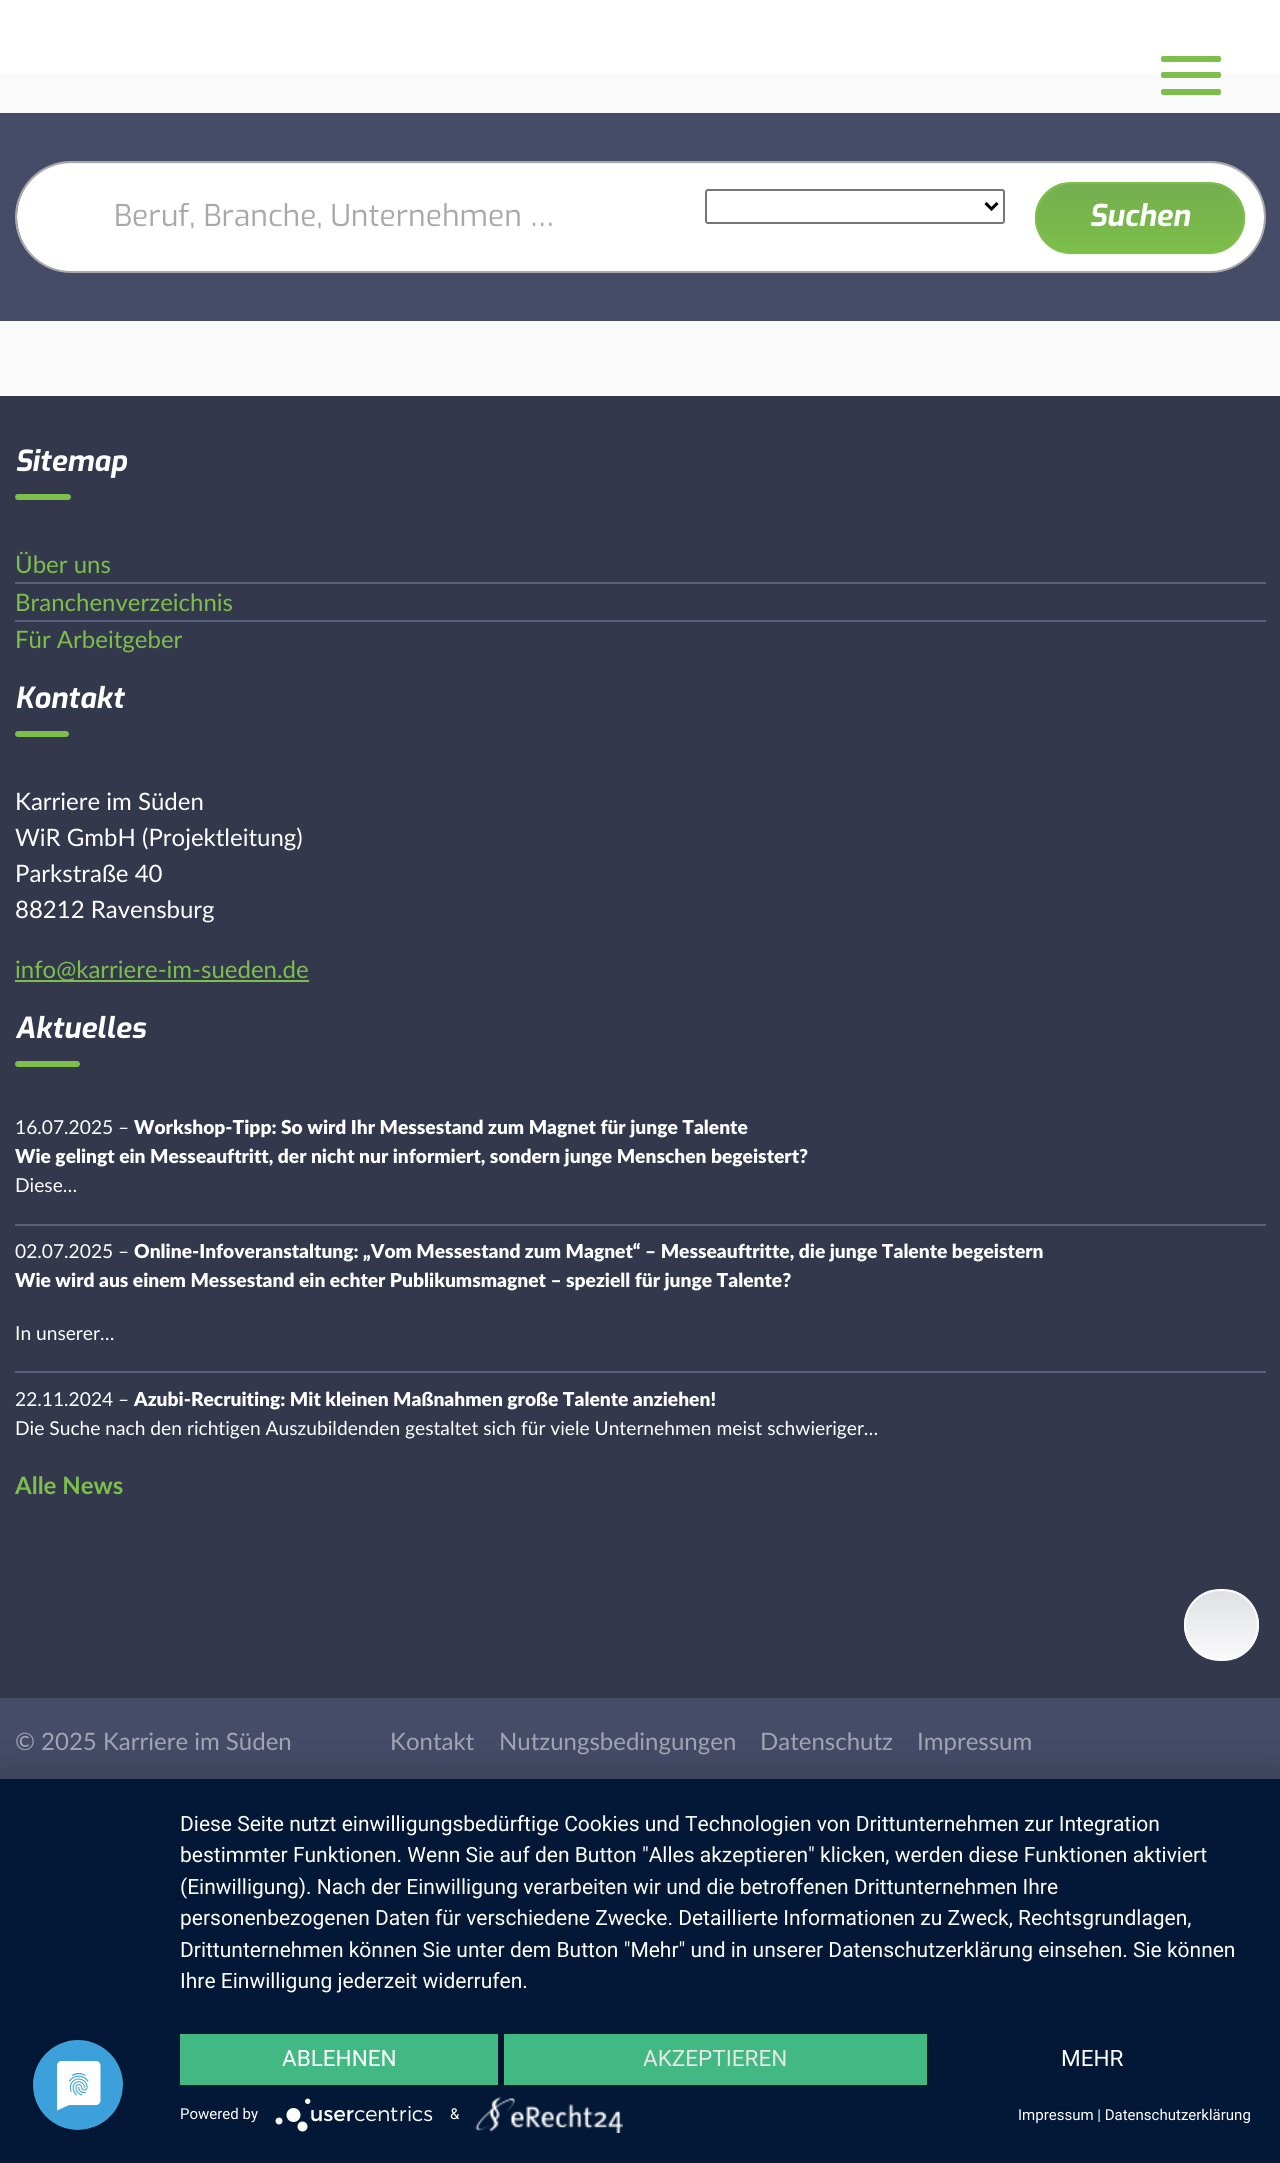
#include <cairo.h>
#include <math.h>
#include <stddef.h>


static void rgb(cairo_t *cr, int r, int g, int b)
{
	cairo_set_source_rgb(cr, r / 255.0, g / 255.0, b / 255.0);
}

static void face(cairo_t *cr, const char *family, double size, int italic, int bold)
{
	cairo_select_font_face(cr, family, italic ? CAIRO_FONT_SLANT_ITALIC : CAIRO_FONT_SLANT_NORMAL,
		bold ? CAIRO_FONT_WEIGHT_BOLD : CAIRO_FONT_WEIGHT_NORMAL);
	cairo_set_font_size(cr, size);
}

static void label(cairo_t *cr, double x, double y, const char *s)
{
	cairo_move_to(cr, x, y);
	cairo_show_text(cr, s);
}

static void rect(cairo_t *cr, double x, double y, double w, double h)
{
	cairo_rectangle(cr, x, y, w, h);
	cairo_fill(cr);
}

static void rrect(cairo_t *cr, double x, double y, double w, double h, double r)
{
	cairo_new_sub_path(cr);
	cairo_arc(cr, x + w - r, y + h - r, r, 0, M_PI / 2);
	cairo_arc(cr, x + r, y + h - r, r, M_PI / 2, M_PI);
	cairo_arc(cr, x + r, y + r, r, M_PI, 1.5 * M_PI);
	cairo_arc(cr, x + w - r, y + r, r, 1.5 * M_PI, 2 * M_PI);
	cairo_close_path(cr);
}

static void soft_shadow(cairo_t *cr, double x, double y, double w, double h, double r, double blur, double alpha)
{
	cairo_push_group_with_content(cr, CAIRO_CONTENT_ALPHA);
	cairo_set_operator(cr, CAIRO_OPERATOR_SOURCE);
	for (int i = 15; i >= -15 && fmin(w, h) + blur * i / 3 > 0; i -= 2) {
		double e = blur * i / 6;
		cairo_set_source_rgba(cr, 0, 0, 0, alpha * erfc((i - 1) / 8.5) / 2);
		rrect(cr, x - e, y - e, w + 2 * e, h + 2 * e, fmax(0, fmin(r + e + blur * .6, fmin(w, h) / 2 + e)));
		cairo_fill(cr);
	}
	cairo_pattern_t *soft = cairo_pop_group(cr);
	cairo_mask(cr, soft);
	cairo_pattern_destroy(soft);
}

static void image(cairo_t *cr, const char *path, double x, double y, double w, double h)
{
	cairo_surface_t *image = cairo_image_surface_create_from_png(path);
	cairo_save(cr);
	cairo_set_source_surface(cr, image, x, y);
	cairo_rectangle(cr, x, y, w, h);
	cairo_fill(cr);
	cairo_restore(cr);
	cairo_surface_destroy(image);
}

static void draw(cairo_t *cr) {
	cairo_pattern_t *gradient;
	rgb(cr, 70, 76, 104);
	cairo_paint(cr);
	rgb(cr, 255, 255, 255);
	rect(cr, 0, 0, 1280, 74);
	rgb(cr, 124, 191, 74);
	rrect(cr, 1161, 56, 60, 6, 2);
	cairo_fill(cr);
	rgb(cr, 250, 250, 250);
	rect(cr, 0, 74, 1280, 39);
	rgb(cr, 124, 191, 74);
	rrect(cr, 1161, 72, 60, 6, 2);
	cairo_fill(cr);
	rrect(cr, 1161, 89, 60, 6, 2);
	cairo_fill(cr);
	rgb(cr, 250, 250, 250);
	rect(cr, 0, 321, 1280, 75);
	rgb(cr, 255, 255, 255);
	rrect(cr, 17, 162, 1248, 110, 55);
	cairo_fill(cr);
	cairo_set_source_rgba(cr, 0, 0, 0, 0.07);
	cairo_new_path(cr);
	cairo_move_to(cr, 71, 164);
	cairo_line_to(cr, 1210, 164);
	cairo_curve_to(cr, 1240, 164, 1264, 188, 1264, 218);
	cairo_curve_to(cr, 1264, 231, 1259, 243, 1252, 253);
	cairo_curve_to(cr, 1260, 243, 1265, 231, 1265, 217);
	cairo_curve_to(cr, 1265, 187, 1240, 162, 1210, 162);
	cairo_line_to(cr, 72, 162);
	cairo_curve_to(cr, 52, 162, 34, 173, 25, 189);
	cairo_curve_to(cr, 35, 174, 52, 164, 71, 164);
	cairo_close_path(cr);
	cairo_fill(cr);
	rrect(cr, 16, 162, 1249, 110, 55);
	rgb(cr, 168, 168, 168);
	cairo_stroke(cr);
	face(cr, "Exo", 30, 0, 0);
	label(cr, 114, 226, "Beruf, Branche, Unternehmen …");
	rrect(cr, 706, 190, 298, 33, 2);
	rgb(cr, 118, 118, 118);
	cairo_stroke(cr);
	cairo_new_path(cr);
	cairo_move_to(cr, 985.5, 203);
	cairo_line_to(cr, 991.5, 209);
	cairo_line_to(cr, 997.5, 203);
	rgb(cr, 0, 0, 0);
	cairo_set_line_width(cr, 3);
	cairo_stroke(cr);
	rgb(cr, 0, 0, 0);
	soft_shadow(cr, 1035, 183, 210, 72, 36, 1, 0.07);
	cairo_save(cr);
	rrect(cr, 1035, 182, 210, 72, 36);
	cairo_clip(cr);
	gradient = cairo_pattern_create_linear(1140, 183, 1140, 252);
	cairo_pattern_add_color_stop_rgba(gradient, 0, 0.455, 0.682, 0.31, 1);
	cairo_pattern_add_color_stop_rgba(gradient, 1, 0.486, 0.749, 0.29, 1);
	cairo_set_source(cr, gradient);
	cairo_pattern_destroy(gradient);
	rect(cr, 1035, 183, 210, 69);
	cairo_restore(cr);
	cairo_set_source_rgba(cr, 1, 1, 1, 0.15);
	cairo_new_path(cr);
	cairo_move_to(cr, 1071, 184);
	cairo_line_to(cr, 1209, 184);
	cairo_curve_to(cr, 1228, 184, 1244, 200, 1244, 218);
	cairo_curve_to(cr, 1244, 198, 1229, 183, 1210, 183);
	cairo_line_to(cr, 1072, 183);
	cairo_curve_to(cr, 1059, 183, 1048, 190, 1042, 200);
	cairo_curve_to(cr, 1048, 191, 1059, 184, 1071, 184);
	cairo_close_path(cr);
	cairo_fill(cr);
	rrect(cr, 1036, 183, 208, 70, 35);
	rgb(cr, 124, 191, 74);
	cairo_set_line_width(cr, 2);
	cairo_stroke(cr);
	face(cr, "Exo", 30, 1, 1);
	rgb(cr, 255, 255, 255);
	label(cr, 1089, 226, "Suchen");
	rgb(cr, 51, 56, 77);
	rect(cr, 0, 396, 1280, 1302);
	face(cr, "Exo", 29, 1, 1);
	rgb(cr, 255, 255, 255);
	label(cr, 15, 471, "Sitemap");
	rgb(cr, 124, 191, 74);
	rrect(cr, 15, 494, 56, 6, 3);
	cairo_fill(cr);
	face(cr, "Lato", 24, 0, 0);
	label(cr, 15, 573, "Über uns");
	rgb(cr, 89, 96, 128);
	rect(cr, 15, 582, 1251, 2);
	rgb(cr, 124, 191, 74);
	label(cr, 15, 611, "Branchenverzeichnis");
	rgb(cr, 89, 96, 128);
	rect(cr, 15, 620, 1251, 2);
	rgb(cr, 124, 191, 74);
	label(cr, 15, 648, "Für Arbeitgeber");
	face(cr, "Exo", 29, 1, 1);
	rgb(cr, 255, 255, 255);
	label(cr, 15, 708, "Kontakt");
	rgb(cr, 124, 191, 74);
	rrect(cr, 15, 731, 54, 6, 3);
	cairo_fill(cr);
	face(cr, "Lato", 24, 0, 0);
	rgb(cr, 255, 255, 255);
	label(cr, 15, 810, "Karriere im Süden");
	label(cr, 15, 846, "WiR GmbH (Projektleitung)");
	label(cr, 15, 882, "Parkstraße 40");
	label(cr, 15, 918, "88212 Ravensburg");
	rgb(cr, 124, 191, 74);
	rect(cr, 15, 980, 294, 2);
	label(cr, 15, 978, "info@karriere-im-sueden.de");
	face(cr, "Exo", 29, 1, 1);
	rgb(cr, 255, 255, 255);
	label(cr, 15, 1038, "Aktuelles");
	rgb(cr, 124, 191, 74);
	rrect(cr, 15, 1061, 65, 6, 3);
	cairo_fill(cr);
	face(cr, "Lato", 19.2, 0, 0);
	rgb(cr, 255, 255, 255);
	label(cr, 15, 1134, "16.07.2025 –");
	face(cr, "Lato ExtraBold", 19.2, 0, 0);
	label(cr, 134, 1134, "Workshop-Tipp: So wird Ihr Messestand zum Magnet für junge Talente");
	label(cr, 15, 1163, "Wie gelingt ein Messeauftritt, der nicht nur informiert, sondern junge Menschen begeistert?");
	face(cr, "Lato", 19.2, 0, 0);
	label(cr, 15, 1192, "Diese…");
	rgb(cr, 89, 96, 128);
	rect(cr, 15, 1224, 1251, 2);
	rgb(cr, 255, 255, 255);
	label(cr, 15, 1258, "02.07.2025 –");
	face(cr, "Lato ExtraBold", 19.2, 0, 0);
	label(cr, 134, 1258, "Online-Infoveranstaltung: „Vom Messestand zum Magnet“ – Messeauftritte, die junge Talente begeistern");
	label(cr, 15, 1287, "Wie wird aus einem Messestand ein echter Publikumsmagnet – speziell für junge Talente?");
	face(cr, "Lato", 19.2, 0, 0);
	label(cr, 15, 1340, "In unserer…");
	rgb(cr, 89, 96, 128);
	rect(cr, 15, 1371, 1251, 2);
	rgb(cr, 255, 255, 255);
	label(cr, 15, 1406, "22.11.2024 –");
	face(cr, "Lato ExtraBold", 19.2, 0, 0);
	label(cr, 134, 1406, "Azubi-Recruiting: Mit kleinen Maßnahmen große Talente anziehen!");
	face(cr, "Lato", 19.2, 0, 0);
	label(cr, 15, 1435, "Die Suche nach den richtigen Auszubildenden gestaltet sich für viele Unternehmen meist schwieriger…");
	face(cr, "Lato", 24, 0, 1);
	rgb(cr, 124, 191, 74);
	label(cr, 15, 1494, "Alle News");
	cairo_save(cr);
	rrect(cr, 1184, 1589, 75, 72, 36);
	cairo_clip(cr);
	gradient = cairo_pattern_create_linear(1221, 1590, 1221, 1659);
	cairo_pattern_add_color_stop_rgba(gradient, 0, 0.875, 0.878, 0.894, 1);
	cairo_pattern_add_color_stop_rgba(gradient, 1, 0.98, 0.98, 0.98, 1);
	cairo_set_source(cr, gradient);
	cairo_pattern_destroy(gradient);
	rect(cr, 1184, 1590, 75, 69);
	cairo_restore(cr);
	cairo_set_source_rgba(cr, 1, 1, 1, 0.15);
	cairo_new_path(cr);
	cairo_move_to(cr, 1220, 1592);
	cairo_curve_to(cr, 1240, 1592, 1257, 1604, 1257, 1625);
	cairo_curve_to(cr, 1257, 1618, 1255, 1611, 1251, 1605);
	cairo_curve_to(cr, 1232, 1577, 1184, 1590, 1185, 1625);
	cairo_curve_to(cr, 1185, 1607, 1200, 1592, 1220, 1592);
	cairo_close_path(cr);
	cairo_fill(cr);
	rrect(cr, 1185, 1590, 73, 70, 35);
	rgb(cr, 250, 250, 250);
	cairo_stroke(cr);
	face(cr, "Lato", 24, 0, 0);
	rgb(cr, 163, 166, 180);
	label(cr, 15, 1750, "© 2025 Karriere im Süden");
	label(cr, 390, 1750, "Kontakt");
	label(cr, 499, 1750, "Nutzungsbedingungen");
	label(cr, 760, 1750, "Datenschutz");
	label(cr, 917, 1750, "Impressum");
	rgb(cr, 0, 0, 0);
	soft_shadow(cr, 0, 1788, 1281, 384, 0, 27, 0.3);
	rgb(cr, 2, 24, 54);
	rect(cr, 0, 1779, 1280, 384);
	image(cr, "image0.png", 32, 2039, 92, 92);
	face(cr, "Roboto", 21, 0, 0);
	rgb(cr, 255, 255, 255);
	label(cr, 180, 1831, "Diese Seite nutzt einwilligungsbedürftige Cookies und Technologien von Drittunternehmen zur Integration");
	label(cr, 180, 1862, "bestimmter Funktionen. Wenn Sie auf den Button \"Alles akzeptieren\" klicken, werden diese Funktionen aktiviert");
	label(cr, 180, 1894, "(Einwilligung). Nach der Einwilligung verarbeiten wir und die betroffenen Drittunternehmen Ihre");
	label(cr, 180, 1925, "personenbezogenen Daten für verschiedene Zwecke. Detaillierte Informationen zu Zweck, Rechtsgrundlagen,");
	label(cr, 180, 1957, "Drittunternehmen können Sie unter dem Button \"Mehr\" und in unserer Datenschutzerklärung einsehen. Sie können");
	label(cr, 180, 1988, "Ihre Einwilligung jederzeit widerrufen.");
	cairo_save(cr);
	cairo_rectangle(cr, 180, 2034, 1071, 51);
	cairo_clip(cr);
	rgb(cr, 0, 0, 0);
	soft_shadow(cr, 180, 2036, 318, 51, 0, 3, 0.4);
	cairo_restore(cr);
	rgb(cr, 66, 185, 131);
	rect(cr, 180, 2034, 318, 51);
	face(cr, "Roboto", 22.5, 0, 0);
	rgb(cr, 255, 255, 255);
	label(cr, 282, 2066, "ABLEHNEN");
	cairo_save(cr);
	cairo_rectangle(cr, 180, 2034, 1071, 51);
	cairo_clip(cr);
	rgb(cr, 0, 0, 0);
	soft_shadow(cr, 504, 2036, 423, 51, 0, 3, 0.4);
	cairo_restore(cr);
	rgb(cr, 66, 185, 131);
	rect(cr, 504, 2034, 423, 51);
	rgb(cr, 230, 230, 230);
	label(cr, 643, 2066, "AKZEPTIEREN");
	rgb(cr, 255, 255, 255);
	label(cr, 1061, 2066, "MEHR");
	face(cr, "Roboto", 15, 0, 0);
	label(cr, 180, 2119, "Powered by");
	image(cr, "image1.png", 275, 2098, 158, 34);
	label(cr, 450, 2119, "&");
	image(cr, "image2.png", 475, 2097, 148, 36);
	label(cr, 1018, 2120, "Impressum | Datenschutzerklärung");
}

int main(void) {
	cairo_surface_t *surface = cairo_image_surface_create(CAIRO_FORMAT_RGB24, 1280, 2163);
	cairo_t *cr = cairo_create(surface);
	cairo_font_options_t *options = cairo_font_options_create();
	cairo_font_options_set_hint_metrics(options, CAIRO_HINT_METRICS_OFF);
	cairo_font_options_set_hint_style(options, CAIRO_HINT_STYLE_NONE);
	cairo_set_font_options(cr, options);
	cairo_set_miter_limit(cr, 4);
	draw(cr);
	cairo_surface_write_to_png(surface, "render.png");
	cairo_font_options_destroy(options);
	cairo_destroy(cr);
	cairo_surface_destroy(surface);
	return 0;
}
